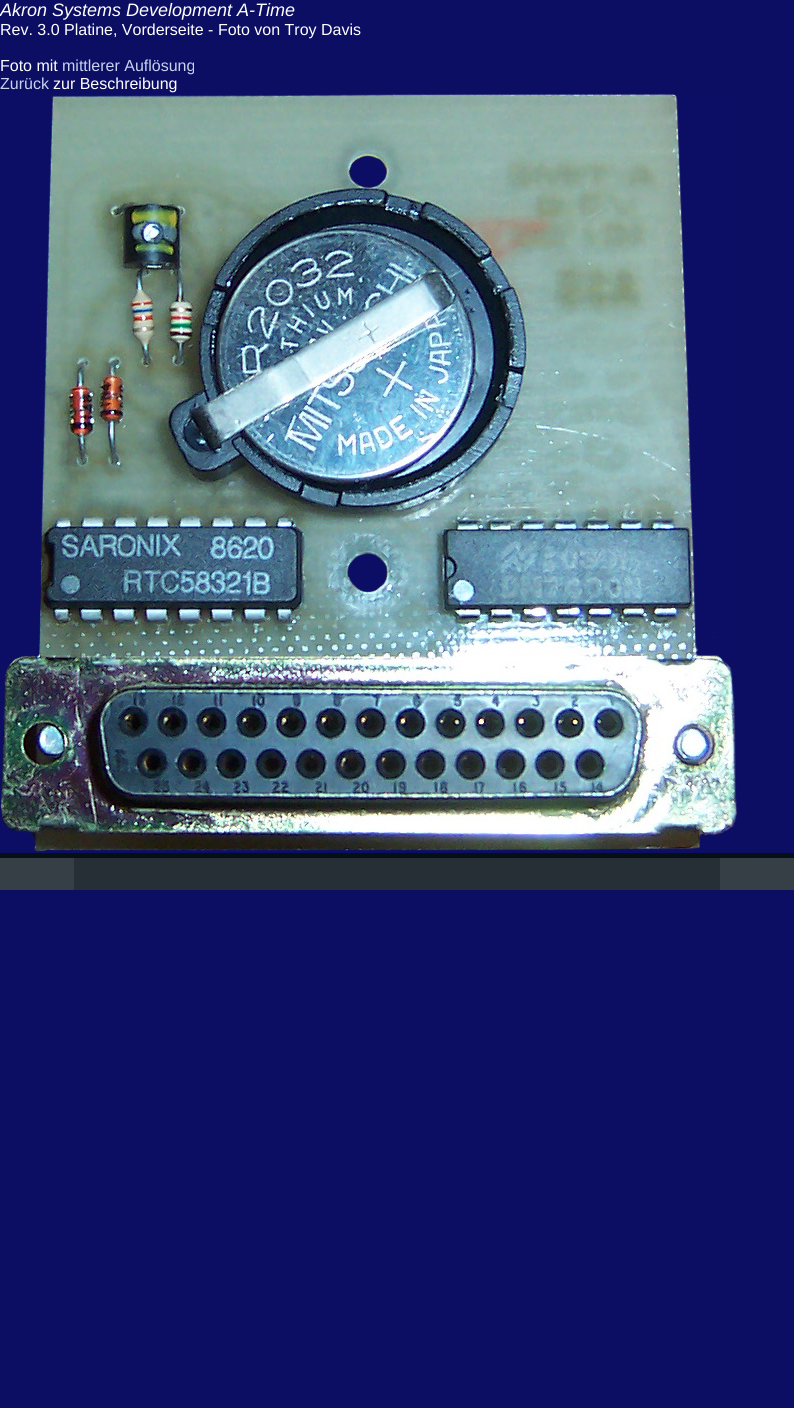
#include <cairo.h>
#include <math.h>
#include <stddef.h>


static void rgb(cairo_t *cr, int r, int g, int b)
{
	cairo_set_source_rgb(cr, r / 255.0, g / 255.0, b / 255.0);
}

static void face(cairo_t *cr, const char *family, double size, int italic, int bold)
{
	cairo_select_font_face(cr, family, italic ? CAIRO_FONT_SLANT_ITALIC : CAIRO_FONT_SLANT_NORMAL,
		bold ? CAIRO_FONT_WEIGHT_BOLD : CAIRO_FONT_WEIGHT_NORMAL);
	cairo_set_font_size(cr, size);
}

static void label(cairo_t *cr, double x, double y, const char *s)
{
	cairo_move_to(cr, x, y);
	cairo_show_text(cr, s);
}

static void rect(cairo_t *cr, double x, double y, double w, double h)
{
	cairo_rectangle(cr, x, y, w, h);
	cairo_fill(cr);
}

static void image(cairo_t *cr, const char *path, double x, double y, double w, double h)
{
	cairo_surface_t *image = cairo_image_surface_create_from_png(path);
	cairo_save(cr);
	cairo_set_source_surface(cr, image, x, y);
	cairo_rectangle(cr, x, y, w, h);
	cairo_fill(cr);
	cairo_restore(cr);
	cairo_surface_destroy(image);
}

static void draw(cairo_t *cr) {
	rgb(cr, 12, 14, 100);
	cairo_paint(cr);
	face(cr, "Liberation Sans", 18, 1, 0);
	rgb(cr, 255, 255, 255);
	label(cr, 0, 16, "Akron Systems Development A-Time");
	face(cr, "Liberation Sans", 16, 0, 0);
	label(cr, 0, 35, "Rev. 3.0 Platine, Vorderseite - Foto von Troy Davis");
	label(cr, 0, 71, "Foto mit");
	rgb(cr, 199, 211, 239);
	label(cr, 62, 71, "mittlerer Auflösung");
	label(cr, 0, 89, "Zurück");
	rgb(cr, 255, 255, 255);
	label(cr, 53, 89, "zur Beschreibung");
	image(cr, "image0.png", 0, 93, 738, 760);
	rgb(cr, 55, 63, 70);
	rect(cr, 0, 858, 794, 32);
	rgb(cr, 7, 15, 22);
	rect(cr, 0, 853, 794, 5);
	rgb(cr, 39, 47, 54);
	rect(cr, 74, 858, 646, 32);
}

int main(void) {
	cairo_surface_t *surface = cairo_image_surface_create(CAIRO_FORMAT_RGB24, 794, 1408);
	cairo_t *cr = cairo_create(surface);
	cairo_font_options_t *options = cairo_font_options_create();
	cairo_font_options_set_hint_metrics(options, CAIRO_HINT_METRICS_OFF);
	cairo_font_options_set_hint_style(options, CAIRO_HINT_STYLE_NONE);
	cairo_set_font_options(cr, options);
	cairo_set_miter_limit(cr, 4);
	draw(cr);
	cairo_surface_write_to_png(surface, "render.png");
	cairo_font_options_destroy(options);
	cairo_destroy(cr);
	cairo_surface_destroy(surface);
	return 0;
}
